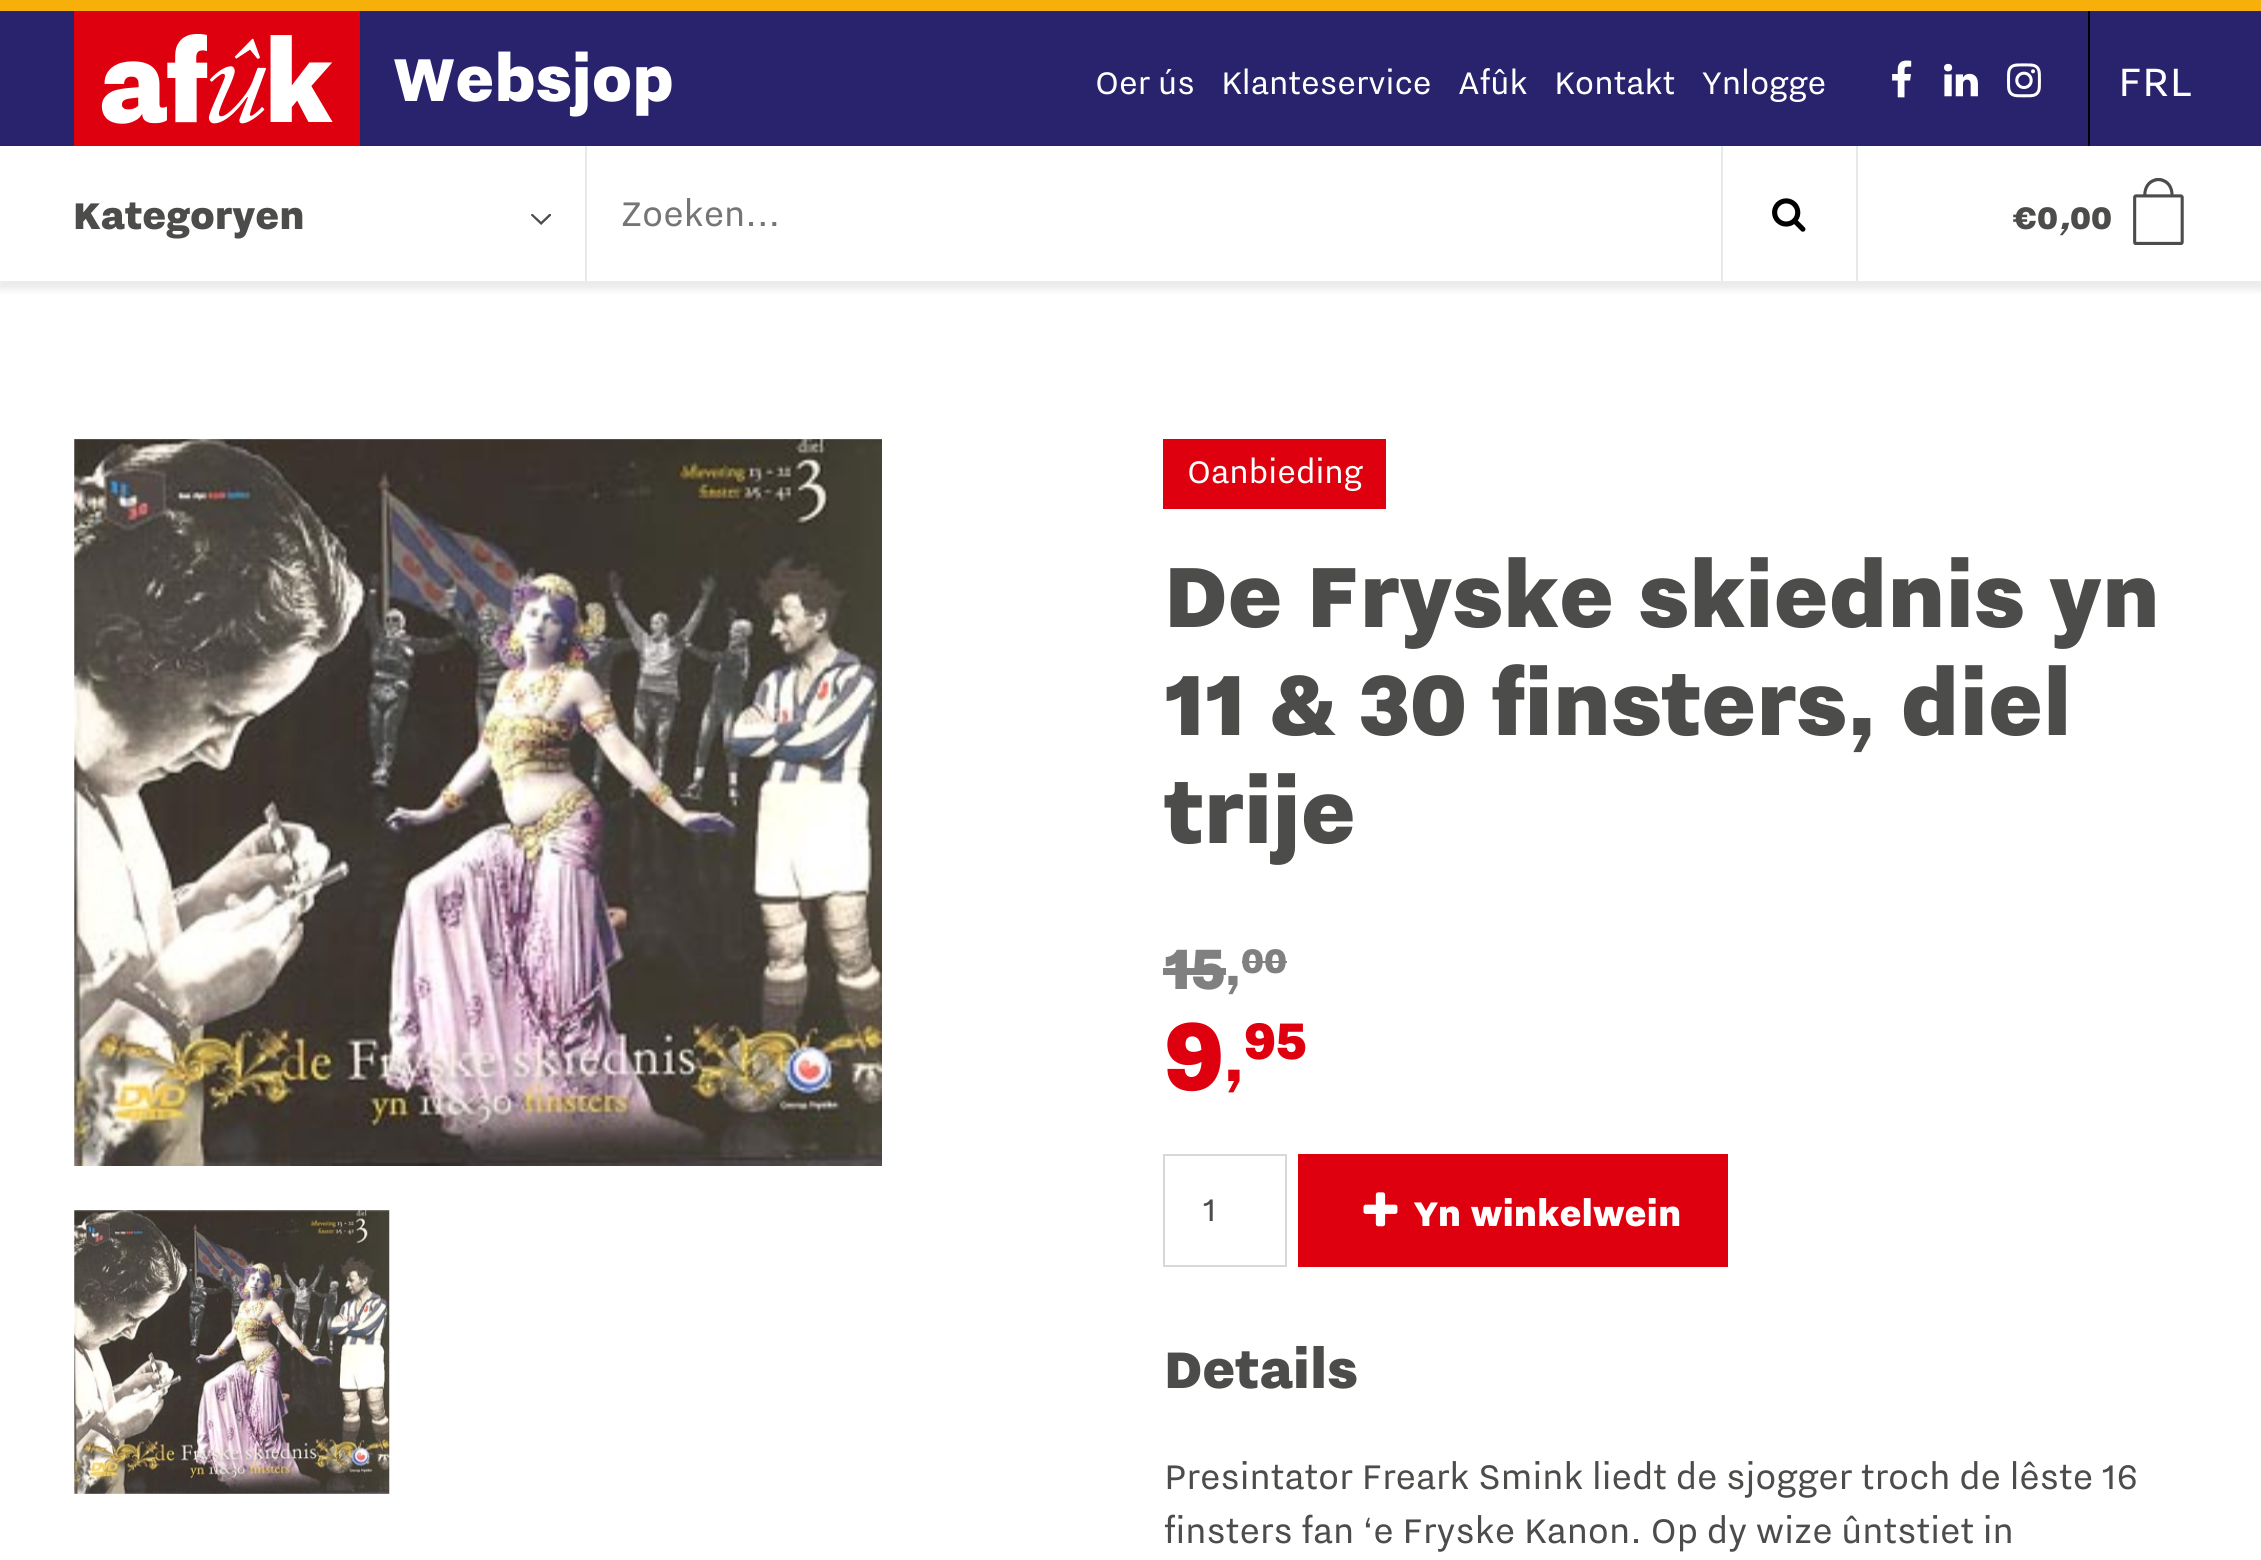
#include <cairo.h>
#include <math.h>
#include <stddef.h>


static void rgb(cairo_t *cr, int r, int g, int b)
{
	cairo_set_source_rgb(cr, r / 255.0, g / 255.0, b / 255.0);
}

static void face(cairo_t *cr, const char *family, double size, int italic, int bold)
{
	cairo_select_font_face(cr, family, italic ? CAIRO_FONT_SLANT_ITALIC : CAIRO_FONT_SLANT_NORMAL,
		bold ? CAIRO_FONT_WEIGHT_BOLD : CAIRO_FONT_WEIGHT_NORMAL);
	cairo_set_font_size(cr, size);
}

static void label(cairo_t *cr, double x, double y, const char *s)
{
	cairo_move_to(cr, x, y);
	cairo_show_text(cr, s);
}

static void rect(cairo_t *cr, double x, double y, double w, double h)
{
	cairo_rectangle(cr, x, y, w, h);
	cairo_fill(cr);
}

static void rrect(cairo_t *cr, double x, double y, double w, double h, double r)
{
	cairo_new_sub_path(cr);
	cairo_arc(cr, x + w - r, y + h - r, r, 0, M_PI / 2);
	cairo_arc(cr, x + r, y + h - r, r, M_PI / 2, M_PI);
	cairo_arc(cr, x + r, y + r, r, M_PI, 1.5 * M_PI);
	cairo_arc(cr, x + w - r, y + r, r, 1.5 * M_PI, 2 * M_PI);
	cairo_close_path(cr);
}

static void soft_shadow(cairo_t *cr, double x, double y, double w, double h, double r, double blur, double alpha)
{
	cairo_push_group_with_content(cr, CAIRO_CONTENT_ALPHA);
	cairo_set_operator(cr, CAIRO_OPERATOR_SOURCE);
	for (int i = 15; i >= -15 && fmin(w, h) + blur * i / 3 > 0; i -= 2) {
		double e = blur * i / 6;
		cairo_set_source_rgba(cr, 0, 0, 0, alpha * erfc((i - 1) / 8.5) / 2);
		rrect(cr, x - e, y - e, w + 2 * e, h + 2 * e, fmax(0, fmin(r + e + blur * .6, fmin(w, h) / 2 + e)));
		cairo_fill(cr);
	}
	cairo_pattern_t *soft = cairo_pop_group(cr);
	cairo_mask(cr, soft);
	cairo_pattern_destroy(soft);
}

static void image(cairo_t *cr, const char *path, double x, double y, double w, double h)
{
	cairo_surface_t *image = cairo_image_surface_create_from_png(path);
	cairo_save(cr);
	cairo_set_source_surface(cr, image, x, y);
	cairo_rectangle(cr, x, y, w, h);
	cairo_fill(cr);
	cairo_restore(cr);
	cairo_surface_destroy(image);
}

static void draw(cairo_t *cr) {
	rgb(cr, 255, 255, 255);
	cairo_paint(cr);
	rgb(cr, 247, 176, 9);
	rect(cr, 0, 0, 2261, 11);
	cairo_save(cr);
	cairo_rectangle(cr, 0, 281, 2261, 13);
	cairo_clip(cr);
	rgb(cr, 155, 155, 155);
	soft_shadow(cr, -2, 151, 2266, 139, 0, 3.5, 0.2);
	cairo_restore(cr);
	rgb(cr, 41, 34, 109);
	rect(cr, 0, 11, 2261, 135);
	rgb(cr, 222, 0, 14);
	rect(cr, 74, 11, 286, 135);
	image(cr, "image0.png", 101, 34, 232, 90);
	face(cr, "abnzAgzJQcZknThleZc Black", 76.5, 0, 0);
	rgb(cr, 255, 255, 255);
	label(cr, 393, 101, "Websjop");
	face(cr, "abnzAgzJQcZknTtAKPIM", 39.5, 0, 0);
	label(cr, 1095, 94, "Oer ús");
	label(cr, 1221, 94, "Klanteservice");
	label(cr, 1458, 94, "Afûk");
	label(cr, 1554, 94, "Kontakt");
	label(cr, 1702, 94, "Ynlogge");
	image(cr, "image1.png", 1892, 60, 20, 38);
	image(cr, "image2.png", 1944, 63, 34, 34);
	image(cr, "image3.png", 2007, 63, 34, 35);
	rgb(cr, 0, 0, 0);
	rect(cr, 2088, 11, 2, 135);
	face(cr, "abnzAgzJQcZknTtAKPIM", 50, 0, 0);
	rgb(cr, 255, 255, 255);
	label(cr, 2118, 96, "FRL");
	face(cr, "abnzAgzJQcZknThleZc Black", 47, 0, 0);
	rgb(cr, 76, 76, 75);
	label(cr, 73, 229, "Kategoryen");
	image(cr, "image4.png", 531, 214, 20, 11);
	rgb(cr, 231, 232, 232);
	rect(cr, 1856, 146, 2, 135);
	rect(cr, 585, 146, 2, 135);
	face(cr, "abnzAgzJQcZknTtAKPIM", 43.2, 0, 0);
	rgb(cr, 117, 117, 117);
	label(cr, 621, 226, "Zoeken...");
	rgb(cr, 231, 232, 232);
	rect(cr, 1721, 146, 2, 135);
	image(cr, "image5.png", 1772, 198, 34, 34);
	face(cr, "abnzAgzJQcZknThleZc Black", 39.5, 0, 0);
	rgb(cr, 76, 76, 75);
	label(cr, 2013, 229, "€0");
	face(cr, "abnzAgzJQcZknThleZc Black", 39.5, 1, 0);
	label(cr, 2059, 229, ",");
	face(cr, "abnzAgzJQcZknThleZc Black", 39.5, 0, 0);
	label(cr, 2070, 229, "00");
	image(cr, "image6.png", 2133, 178, 51, 67);
	image(cr, "image7.png", 74, 439, 808, 727);
	image(cr, "image8.png", 74, 1210, 316, 284);
	rgb(cr, 222, 0, 14);
	rect(cr, 1163, 439, 223, 70);
	face(cr, "abnzAgzJQcZknTtAKPIM", 39.5, 0, 0);
	rgb(cr, 255, 255, 255);
	label(cr, 1187, 483, "Oanbieding");
	face(cr, "abnzAgzJQcZknThleZc Black", 108, 0, 0);
	rgb(cr, 76, 76, 75);
	label(cr, 1164, 627, "De Fryske skiednis yn");
	label(cr, 1164, 735, "11 & 30 finsters, diel");
	label(cr, 1164, 843, "trije");
	face(cr, "abnzAgzJQcZknThleZc Black", 72, 0, 0);
	rgb(cr, 128, 128, 128);
	label(cr, 1164, 989, "15");
	rect(cr, 1163, 968, 63, 7);
	face(cr, "abnzAgzJQcZknThleZc Black", 43.2, 0, 0);
	label(cr, 1241, 973, "00");
	rect(cr, 1242, 961, 45, 2);
	face(cr, "abnzAgzJQcZknThleZc Black", 58, 0, 0);
	label(cr, 1225, 985, ",");
	face(cr, "abnzAgzJQcZknThleZc Black", 122, 0, 0);
	rgb(cr, 222, 0, 14);
	label(cr, 1164, 1090, "9");
	face(cr, "abnzAgzJQcZknThleZc Black", 65, 0, 0);
	label(cr, 1244, 1059, "95");
	face(cr, "abnzAgzJQcZknThleZc Black", 72, 0, 0);
	label(cr, 1224, 1081, ",");
	cairo_rectangle(cr, 1164, 1155, 122, 111);
	rgb(cr, 216, 216, 216);
	cairo_stroke(cr);
	face(cr, "abnzAgzJQcZknTtAKPIM", 39.5, 0, 0);
	rgb(cr, 76, 76, 75);
	label(cr, 1203, 1221, "1");
	rgb(cr, 222, 0, 14);
	rect(cr, 1298, 1154, 430, 113);
	image(cr, "image9.png", 1363, 1192, 35, 35);
	face(cr, "abnzAgzJQcZknThleZc Black", 43.2, 0, 0);
	rgb(cr, 255, 255, 255);
	label(cr, 1414, 1226, "Yn winkelwein");
	face(cr, "abnzAgzJQcZknThleZc Black", 65, 0, 0);
	rgb(cr, 76, 76, 75);
	label(cr, 1164, 1388, "Details");
	face(cr, "abnzAgzJQcZknTtAKPIM", 43.2, 0, 0);
	label(cr, 1164, 1489, "Presintator Freark Smink liedt de sjogger troch de lêste 16");
	label(cr, 1164, 1543, "finsters fan ‘e Fryske Kanon. Op dy wize ûntstiet in");
}

int main(void) {
	cairo_surface_t *surface = cairo_image_surface_create(CAIRO_FORMAT_RGB24, 2261, 1560);
	cairo_t *cr = cairo_create(surface);
	cairo_font_options_t *options = cairo_font_options_create();
	cairo_font_options_set_hint_metrics(options, CAIRO_HINT_METRICS_OFF);
	cairo_font_options_set_hint_style(options, CAIRO_HINT_STYLE_NONE);
	cairo_set_font_options(cr, options);
	cairo_set_miter_limit(cr, 4);
	draw(cr);
	cairo_surface_write_to_png(surface, "render.png");
	cairo_font_options_destroy(options);
	cairo_destroy(cr);
	cairo_surface_destroy(surface);
	return 0;
}
